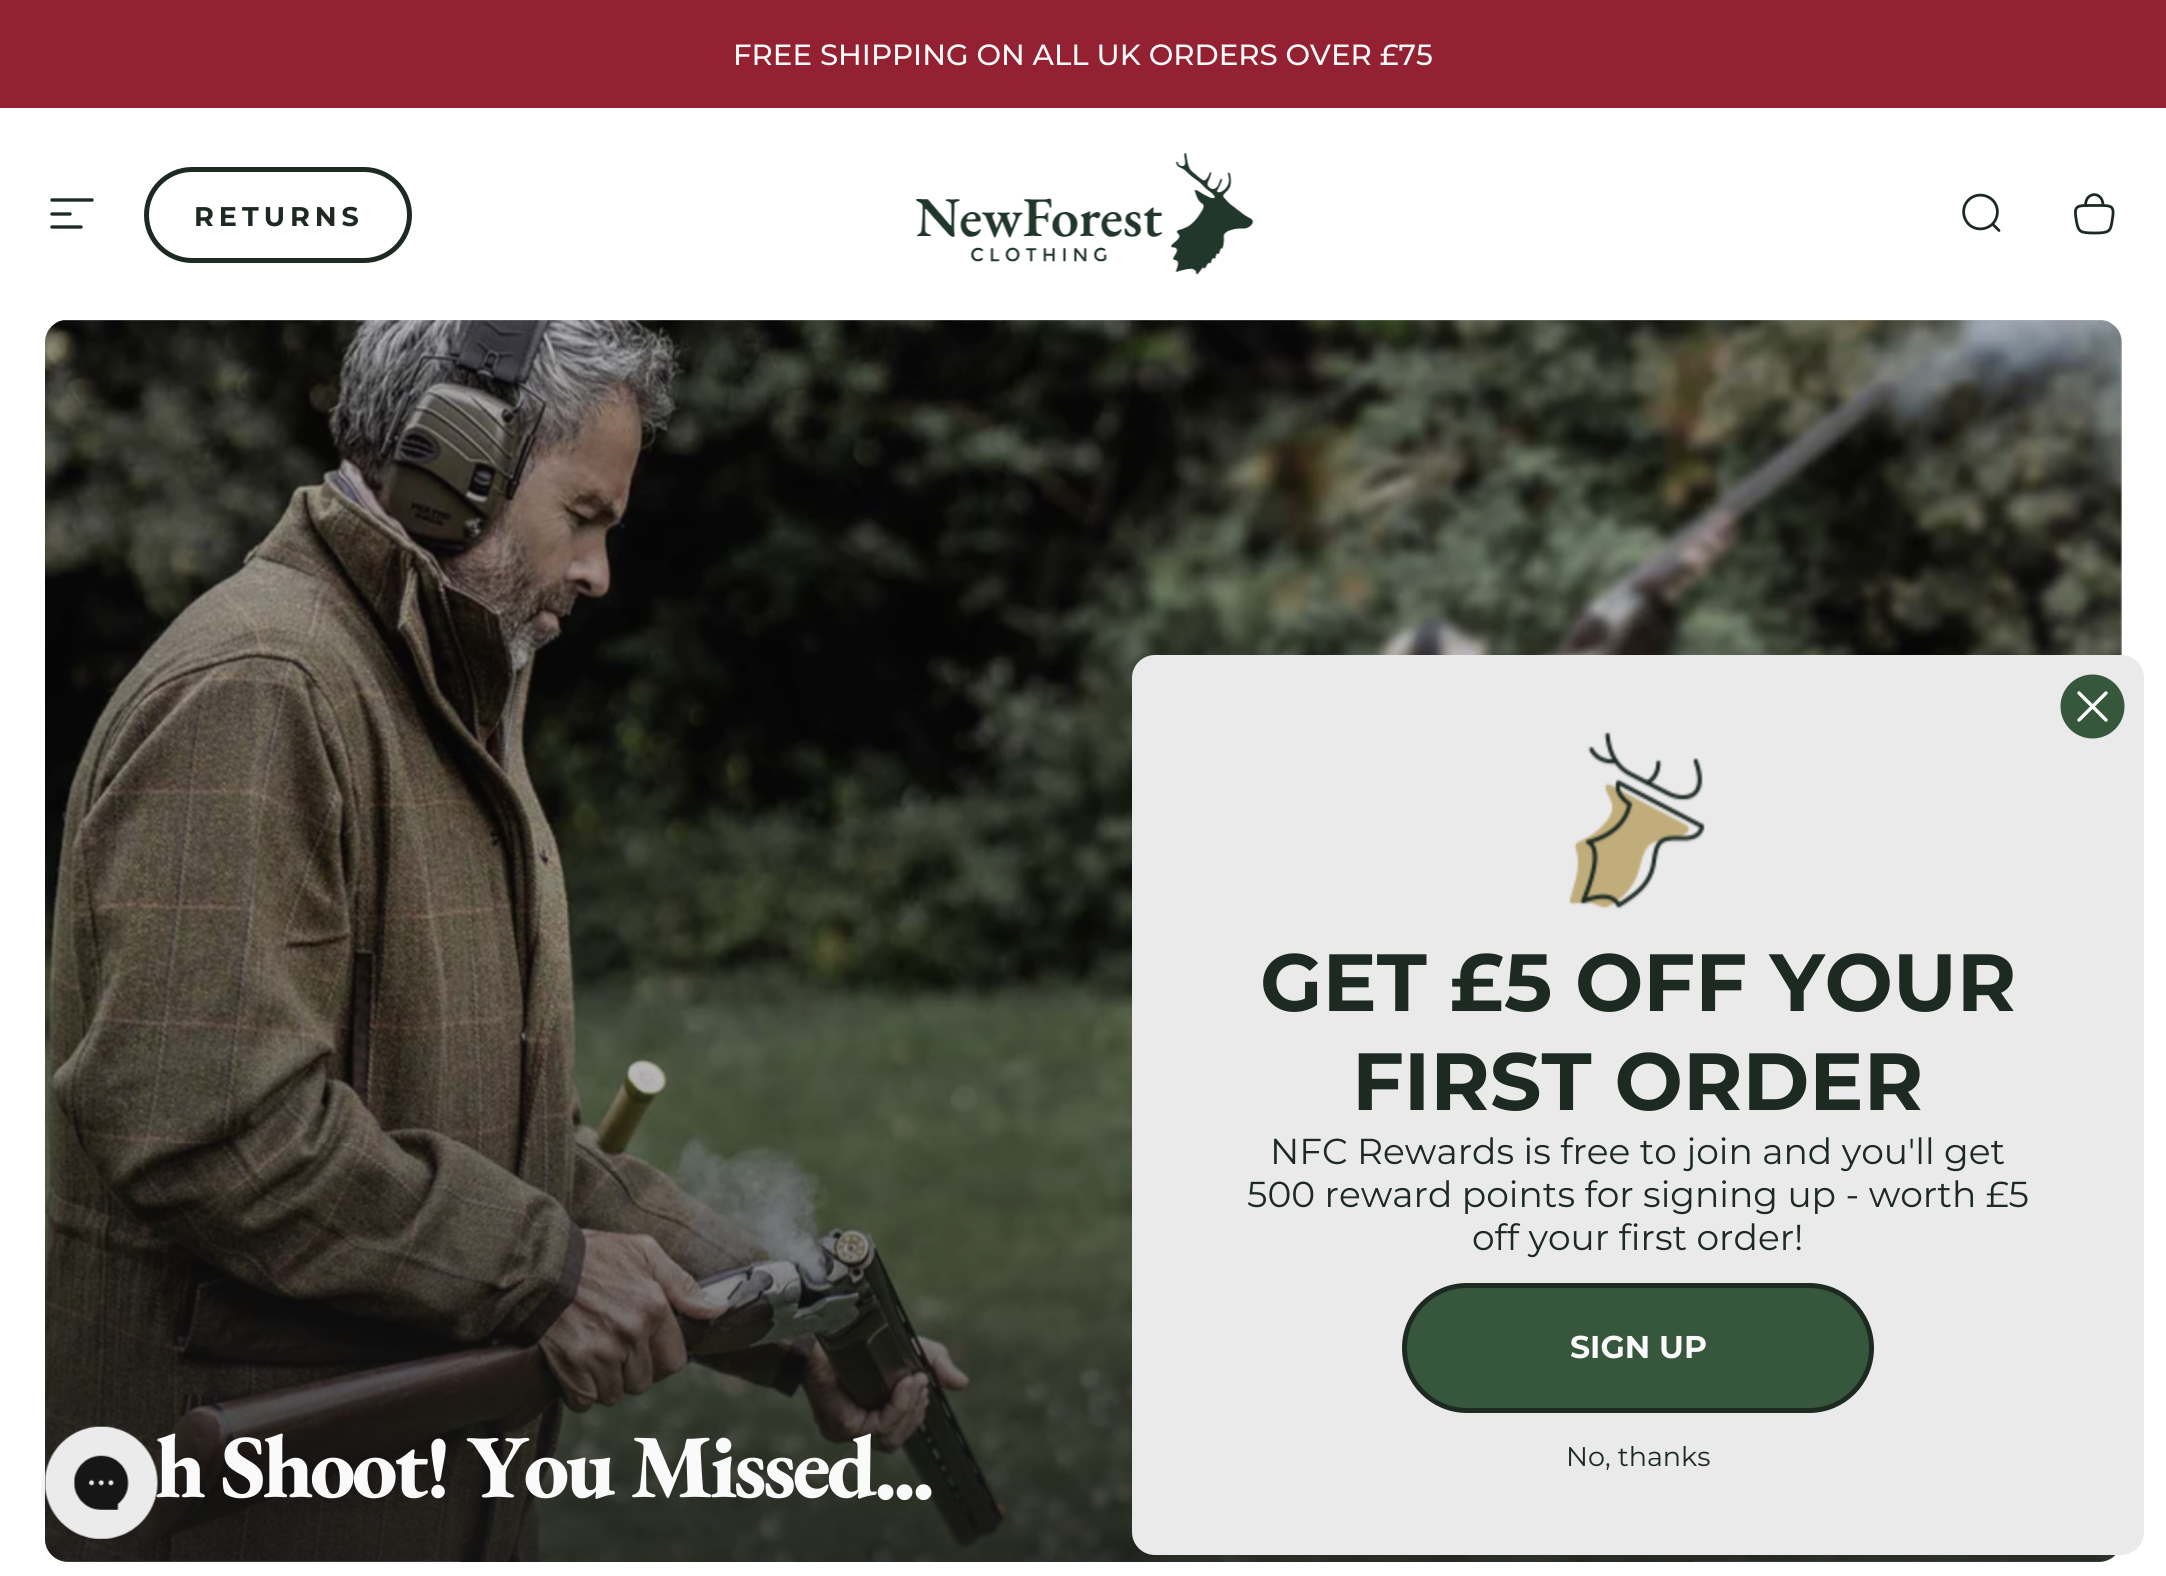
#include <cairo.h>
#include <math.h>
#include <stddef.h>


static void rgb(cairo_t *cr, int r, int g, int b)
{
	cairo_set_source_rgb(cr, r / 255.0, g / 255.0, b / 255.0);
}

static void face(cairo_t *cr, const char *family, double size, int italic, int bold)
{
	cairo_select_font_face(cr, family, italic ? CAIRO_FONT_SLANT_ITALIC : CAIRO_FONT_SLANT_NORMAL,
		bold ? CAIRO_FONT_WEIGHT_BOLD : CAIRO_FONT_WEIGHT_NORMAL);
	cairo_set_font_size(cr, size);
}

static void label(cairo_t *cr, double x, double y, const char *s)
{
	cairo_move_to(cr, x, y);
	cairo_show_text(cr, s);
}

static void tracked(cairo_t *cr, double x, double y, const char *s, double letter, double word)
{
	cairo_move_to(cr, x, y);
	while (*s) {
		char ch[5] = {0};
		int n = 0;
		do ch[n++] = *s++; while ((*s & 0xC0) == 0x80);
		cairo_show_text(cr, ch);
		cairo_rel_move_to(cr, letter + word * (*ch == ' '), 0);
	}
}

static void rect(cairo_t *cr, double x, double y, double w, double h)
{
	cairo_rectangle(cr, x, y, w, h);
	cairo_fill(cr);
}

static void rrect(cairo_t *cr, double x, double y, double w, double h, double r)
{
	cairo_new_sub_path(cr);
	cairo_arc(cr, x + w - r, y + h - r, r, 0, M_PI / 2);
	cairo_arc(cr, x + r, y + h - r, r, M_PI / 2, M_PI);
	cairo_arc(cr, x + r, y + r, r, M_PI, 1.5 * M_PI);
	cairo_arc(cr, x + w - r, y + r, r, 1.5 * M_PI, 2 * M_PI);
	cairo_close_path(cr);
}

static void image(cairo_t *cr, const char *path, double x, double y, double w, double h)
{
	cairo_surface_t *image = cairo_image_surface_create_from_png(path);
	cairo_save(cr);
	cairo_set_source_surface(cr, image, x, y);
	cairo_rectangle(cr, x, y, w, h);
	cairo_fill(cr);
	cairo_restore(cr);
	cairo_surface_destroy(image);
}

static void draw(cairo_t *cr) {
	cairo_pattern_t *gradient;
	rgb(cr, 255, 255, 255);
	cairo_paint(cr);
	rgb(cr, 148, 33, 49);
	rect(cr, 0, 0, 2166, 108);
	face(cr, "Montserrat Medium", 29.25, 0, 0);
	rgb(cr, 250, 250, 250);
	label(cr, 733, 65, "FREE SHIPPING ON ALL UK ORDERS OVER £75");
	cairo_new_path(cr);
	cairo_move_to(cr, 52, 200);
	cairo_line_to(cr, 92, 200);
	cairo_move_to(cr, 52, 214);
	cairo_line_to(cr, 70, 214);
	cairo_move_to(cr, 52, 227);
	cairo_line_to(cr, 81, 227);
	rgb(cr, 29, 42, 34);
	cairo_set_line_width(cr, 3.4);
	cairo_set_line_cap(cr, CAIRO_LINE_CAP_ROUND);
	cairo_stroke(cr);
	rrect(cr, 146.5, 169.5, 263, 91, 45.5);
	cairo_set_line_width(cr, 5);
	cairo_set_line_cap(cr, CAIRO_LINE_CAP_BUTT);
	cairo_stroke(cr);
	face(cr, "Montserrat", 27, 0, 1);
	tracked(cr, 194, 226, "RETURNS", 5, 0);
	image(cr, "image0.png", 915, 153, 339, 122);
	cairo_new_path(cr);
	cairo_move_to(cr, 1999, 230.5);
	cairo_line_to(cr, 1992.5, 224);
	cairo_move_to(cr, 1992.5, 224);
	cairo_curve_to(cr, 1999, 217, 1999, 206.5, 1992.5, 200);
	cairo_curve_to(cr, 1985.5, 193.5, 1975, 193.5, 1968.5, 200);
	cairo_curve_to(cr, 1962, 206.5, 1962, 217, 1968.5, 224);
	cairo_curve_to(cr, 1975, 230.5, 1985.5, 230.5, 1992.5, 224);
	cairo_close_path(cr);
	cairo_set_line_width(cr, 2.8);
	cairo_set_line_cap(cr, CAIRO_LINE_CAP_ROUND);
	cairo_stroke(cr);
	cairo_new_path(cr);
	cairo_move_to(cr, 2085.5, 205.5);
	cairo_curve_to(cr, 2085.5, 191, 2103, 191, 2103, 205.5);
	cairo_move_to(cr, 2094.5, 205.5);
	cairo_curve_to(cr, 2076, 205.5, 2073.5, 204.5, 2076.5, 221.5);
	cairo_curve_to(cr, 2078.5, 231.5, 2079.5, 233, 2094.5, 233);
	cairo_curve_to(cr, 2109, 233, 2110.5, 231.5, 2112, 221.5);
	cairo_curve_to(cr, 2115, 204.5, 2112.5, 205.5, 2094.5, 205.5);
	cairo_close_path(cr);
	cairo_set_line_cap(cr, CAIRO_LINE_CAP_BUTT);
	cairo_stroke(cr);
	rgb(cr, 246, 246, 246);
	rrect(cr, 45, 320, 2077, 1242, 23);
	cairo_fill(cr);
	image(cr, "image3.png", 45, 320, 2077, 1242);
	gradient = cairo_pattern_create_linear(1083, 319, 1083, 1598);
	cairo_pattern_add_color_stop_rgba(gradient, 0.5, 0.09, 0.09, 0.09, 0.2);
	cairo_pattern_add_color_stop_rgba(gradient, 1, 0.09, 0.09, 0.09, 0.8);
	cairo_set_source(cr, gradient);
	cairo_pattern_destroy(gradient);
	rrect(cr, 45, 320, 2077, 1242, 23);
	cairo_fill(cr);
	rgb(cr, 234, 234, 234);
	rrect(cr, 1132, 655, 1012, 900, 23);
	cairo_fill(cr);
	rgb(cr, 54, 87, 59);
	cairo_arc(cr, 2092.5, 706.5, 32, 0, 2 * M_PI);
	cairo_fill(cr);
	cairo_new_path(cr);
	cairo_move_to(cr, 2079, 693);
	cairo_line_to(cr, 2106, 720);
	cairo_move_to(cr, 2079, 720);
	cairo_line_to(cr, 2106, 693);
	cairo_close_path(cr);
	rgb(cr, 255, 255, 255);
	cairo_set_line_width(cr, 3.4);
	cairo_set_line_cap(cr, CAIRO_LINE_CAP_ROUND);
	cairo_set_line_join(cr, CAIRO_LINE_JOIN_ROUND);
	cairo_stroke(cr);
	image(cr, "image1.png", 1569, 732, 136, 178);
	face(cr, "Montserrat", 81, 0, 1);
	rgb(cr, 29, 42, 34);
	label(cr, 1260, 1011, "GET £5 OFF YOUR");
	label(cr, 1352, 1110, "FIRST ORDER");
	face(cr, "Montserrat", 36, 0, 0);
	label(cr, 1270, 1164, "NFC Rewards is free to join and you'll get");
	label(cr, 1247, 1207, "500 reward points for signing up - worth £5");
	label(cr, 1472, 1250, "off your first order!");
	rgb(cr, 54, 87, 59);
	rrect(cr, 1404.5, 1285.5, 467, 125, 62.5);
	cairo_fill_preserve(cr);
	rgb(cr, 29, 42, 34);
	cairo_set_line_width(cr, 5);
	cairo_set_line_cap(cr, CAIRO_LINE_CAP_BUTT);
	cairo_set_line_join(cr, CAIRO_LINE_JOIN_MITER);
	cairo_stroke(cr);
	face(cr, "Montserrat", 31.5, 0, 1);
	rgb(cr, 250, 250, 250);
	label(cr, 1570, 1358, "SIGN UP");
	face(cr, "Montserrat", 27, 0, 0);
	rgb(cr, 29, 42, 34);
	label(cr, 1566, 1466, "No, thanks");
	face(cr, "EB Garamond ExtraBold", 90, 0, 0);
	rgb(cr, 250, 250, 250);
	tracked(cr, 155, 1497, "h Shoot! You Missed...", -3.6, 0);
	image(cr, "image2.png", 41, 1426, 121, 114);
}

int main(void) {
	cairo_surface_t *surface = cairo_image_surface_create(CAIRO_FORMAT_RGB24, 2166, 1576);
	cairo_t *cr = cairo_create(surface);
	cairo_font_options_t *options = cairo_font_options_create();
	cairo_font_options_set_hint_metrics(options, CAIRO_HINT_METRICS_OFF);
	cairo_font_options_set_hint_style(options, CAIRO_HINT_STYLE_NONE);
	cairo_set_font_options(cr, options);
	cairo_set_miter_limit(cr, 4);
	draw(cr);
	cairo_surface_write_to_png(surface, "render.png");
	cairo_font_options_destroy(options);
	cairo_destroy(cr);
	cairo_surface_destroy(surface);
	return 0;
}
